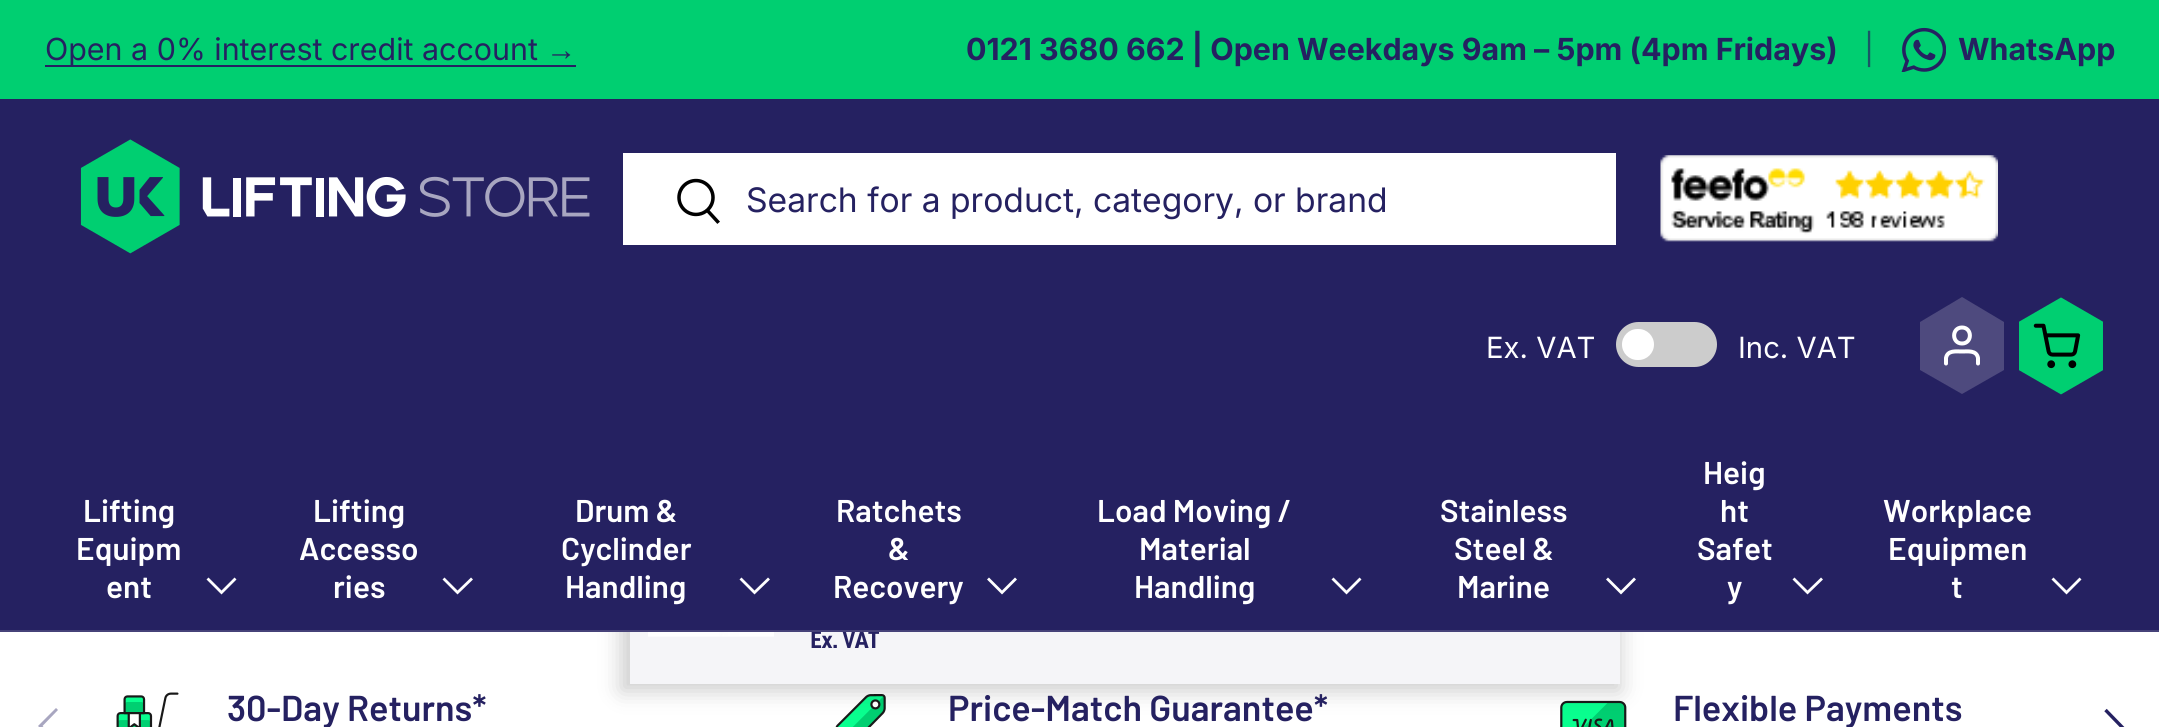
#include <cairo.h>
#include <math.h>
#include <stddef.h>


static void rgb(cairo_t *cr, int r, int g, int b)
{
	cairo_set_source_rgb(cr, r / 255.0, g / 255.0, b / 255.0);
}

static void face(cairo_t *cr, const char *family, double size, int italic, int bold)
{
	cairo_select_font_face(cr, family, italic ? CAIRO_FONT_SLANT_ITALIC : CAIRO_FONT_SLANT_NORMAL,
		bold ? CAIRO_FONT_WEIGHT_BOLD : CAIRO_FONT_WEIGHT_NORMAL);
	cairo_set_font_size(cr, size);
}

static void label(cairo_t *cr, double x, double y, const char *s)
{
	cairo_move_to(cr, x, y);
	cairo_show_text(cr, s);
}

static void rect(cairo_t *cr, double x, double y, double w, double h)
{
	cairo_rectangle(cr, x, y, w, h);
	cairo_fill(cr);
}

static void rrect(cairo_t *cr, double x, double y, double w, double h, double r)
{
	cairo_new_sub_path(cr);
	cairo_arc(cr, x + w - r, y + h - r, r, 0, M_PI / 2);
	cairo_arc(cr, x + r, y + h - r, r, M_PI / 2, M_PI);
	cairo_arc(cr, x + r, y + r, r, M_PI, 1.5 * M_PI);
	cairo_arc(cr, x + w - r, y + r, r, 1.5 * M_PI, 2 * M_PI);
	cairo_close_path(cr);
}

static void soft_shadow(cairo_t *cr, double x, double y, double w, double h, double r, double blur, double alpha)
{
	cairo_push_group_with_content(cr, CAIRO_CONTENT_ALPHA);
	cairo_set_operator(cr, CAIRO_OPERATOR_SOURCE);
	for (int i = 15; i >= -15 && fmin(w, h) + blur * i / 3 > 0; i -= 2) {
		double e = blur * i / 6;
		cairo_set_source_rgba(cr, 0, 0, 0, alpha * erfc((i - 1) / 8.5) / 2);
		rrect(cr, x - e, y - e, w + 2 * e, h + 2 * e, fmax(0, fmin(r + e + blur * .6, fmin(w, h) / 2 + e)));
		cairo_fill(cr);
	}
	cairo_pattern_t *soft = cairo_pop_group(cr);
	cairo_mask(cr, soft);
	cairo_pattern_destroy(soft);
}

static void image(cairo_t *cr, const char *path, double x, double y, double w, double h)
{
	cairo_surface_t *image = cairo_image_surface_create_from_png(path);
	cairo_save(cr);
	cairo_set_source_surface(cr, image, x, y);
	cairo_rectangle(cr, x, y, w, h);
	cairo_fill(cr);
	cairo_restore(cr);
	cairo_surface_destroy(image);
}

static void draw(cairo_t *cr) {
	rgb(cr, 255, 255, 255);
	cairo_paint(cr);
	rgb(cr, 0, 207, 113);
	rect(cr, 0, 0, 2159, 99);
	rgb(cr, 37, 33, 97);
	rect(cr, 45, 65, 531, 2);
	face(cr, "Inter", 30.4, 0, 0);
	label(cr, 45, 60, "Open a 0% interest credit account");
	face(cr, "Liberation Sans", 30.4, 0, 0);
	label(cr, 546, 60, "→");
	face(cr, "Inter", 30.4, 0, 1);
	label(cr, 966, 60, "0121 3680 662 | Open Weekdays 9am – 5pm (4pm Fridays)");
	face(cr, "Inter", 30.4, 0, 0);
	rgb(cr, 26, 85, 102);
	label(cr, 1864, 60, "|");
	image(cr, "image0.png", 1901, 27, 45, 45);
	face(cr, "Inter", 30.4, 0, 1);
	rgb(cr, 37, 33, 97);
	label(cr, 1958, 60, "WhatsApp");
	image(cr, "image8.png", 835, 694, 51, 33);
	image(cr, "image9.png", 1560, 700, 67, 27);
	rgb(cr, 0, 0, 0);
	soft_shadow(cr, 621, 461, 999, 230, 0, 11, 0.2);
	rgb(cr, 37, 33, 97);
	rect(cr, 0, 99, 2159, 531);
	rgb(cr, 70, 66, 121);
	rect(cr, 0, 630, 2159, 2);
	image(cr, "image1.png", 80, 139, 510, 115);
	rgb(cr, 255, 255, 255);
	rect(cr, 623, 153, 993, 92);
	image(cr, "image2.png", 677, 178, 43, 46);
	face(cr, "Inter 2", 33.75, 0, 0);
	rgb(cr, 37, 33, 97);
	label(cr, 746, 212, "Search for a product, category, or brand");
	image(cr, "image3.png", 1660, 155, 338, 87);
	face(cr, "Inter", 29.25, 0, 0);
	rgb(cr, 255, 255, 255);
	label(cr, 1486, 358, "Ex. VAT");
	rgb(cr, 204, 204, 204);
	rrect(cr, 1616, 322, 101, 45, 22.5);
	cairo_fill(cr);
	rgb(cr, 255, 255, 255);
	rrect(cr, 1622, 329, 32, 31, 15.5);
	cairo_fill(cr);
	label(cr, 1738, 358, "Inc. VAT");
	rgb(cr, 78, 74, 126);
	cairo_new_path(cr);
	cairo_move_to(cr, 1962, 297);
	cairo_line_to(cr, 2004, 322);
	cairo_line_to(cr, 2004, 370);
	cairo_line_to(cr, 1962, 394);
	cairo_line_to(cr, 1920, 370);
	cairo_line_to(cr, 1920, 322);
	cairo_close_path(cr);
	cairo_fill(cr);
	cairo_new_path(cr);
	cairo_move_to(cr, 1978, 363.5);
	cairo_line_to(cr, 1978, 358);
	cairo_curve_to(cr, 1976.5, 350, 1968, 351.5, 1962, 351.5);
	cairo_curve_to(cr, 1956, 351.5, 1947.5, 350, 1946, 358);
	cairo_line_to(cr, 1946, 363.5);
	cairo_move_to(cr, 1962, 343.5);
	cairo_curve_to(cr, 1972.5, 343.5, 1972.5, 327.5, 1962, 327.5);
	cairo_curve_to(cr, 1951.5, 327.5, 1951.5, 343.5, 1962, 343.5);
	cairo_close_path(cr);
	rgb(cr, 255, 255, 255);
	cairo_set_line_width(cr, 4);
	cairo_set_line_cap(cr, CAIRO_LINE_CAP_ROUND);
	cairo_set_line_join(cr, CAIRO_LINE_JOIN_ROUND);
	cairo_stroke(cr);
	image(cr, "image4.png", 2019, 297, 84, 98);
	face(cr, "Barlow SemiBold", 31.5, 0, 0);
	label(cr, 83, 522, "Lifting");
	label(cr, 76, 560, "Equipm");
	label(cr, 106, 598, "ent");
	cairo_new_path(cr);
	cairo_move_to(cr, 235.5, 578.5);
	cairo_line_to(cr, 221.5, 592.5);
	cairo_line_to(cr, 207.5, 578.5);
	cairo_set_line_width(cr, 2.8);
	cairo_set_line_cap(cr, CAIRO_LINE_CAP_BUTT);
	cairo_set_line_join(cr, CAIRO_LINE_JOIN_MITER);
	cairo_stroke(cr);
	label(cr, 313, 522, "Lifting");
	label(cr, 299, 560, "Accesso");
	label(cr, 333, 598, "ries");
	cairo_new_path(cr);
	cairo_move_to(cr, 472, 578.5);
	cairo_line_to(cr, 457.5, 592.5);
	cairo_line_to(cr, 443.5, 578.5);
	cairo_stroke(cr);
	label(cr, 575, 522, "Drum &");
	label(cr, 561, 560, "Cyclinder");
	label(cr, 565, 598, "Handling");
	cairo_new_path(cr);
	cairo_move_to(cr, 769, 578.5);
	cairo_line_to(cr, 754.5, 592.5);
	cairo_line_to(cr, 740.5, 578.5);
	cairo_stroke(cr);
	label(cr, 836, 522, "Ratchets");
	label(cr, 888, 560, "&");
	label(cr, 833, 598, "Recovery");
	cairo_new_path(cr);
	cairo_move_to(cr, 1016, 578.5);
	cairo_line_to(cr, 1002, 592.5);
	cairo_line_to(cr, 988, 578.5);
	cairo_stroke(cr);
	label(cr, 1097, 522, "Load Moving /");
	label(cr, 1139, 560, "Material");
	label(cr, 1134, 598, "Handling");
	cairo_new_path(cr);
	cairo_move_to(cr, 1360.5, 578.5);
	cairo_line_to(cr, 1346.5, 592.5);
	cairo_line_to(cr, 1332.5, 578.5);
	cairo_stroke(cr);
	label(cr, 1440, 522, "Stainless");
	label(cr, 1454, 560, "Steel &");
	label(cr, 1457, 598, "Marine");
	cairo_new_path(cr);
	cairo_move_to(cr, 1635, 578.5);
	cairo_line_to(cr, 1621, 592.5);
	cairo_line_to(cr, 1607, 578.5);
	cairo_stroke(cr);
	label(cr, 1703, 484, "Heig");
	label(cr, 1720, 522, "ht");
	label(cr, 1697, 560, "Safet");
	label(cr, 1727, 598, "y");
	cairo_new_path(cr);
	cairo_move_to(cr, 1822, 578.5);
	cairo_line_to(cr, 1807.5, 592.5);
	cairo_line_to(cr, 1793.5, 578.5);
	cairo_stroke(cr);
	label(cr, 1883, 522, "Workplace");
	label(cr, 1888, 560, "Equipmen");
	label(cr, 1951, 598, "t");
	cairo_new_path(cr);
	cairo_move_to(cr, 2080.5, 578.5);
	cairo_line_to(cr, 2066.5, 592.5);
	cairo_line_to(cr, 2052.5, 578.5);
	cairo_stroke(cr);
	rgb(cr, 245, 245, 248);
	rect(cr, 630, 632, 990, 52);
	image(cr, "image5.png", 648, 632, 126, 5);
	image(cr, "image6.png", 811, 632, 69, 16);
	image(cr, "image7.png", 116, 692, 63, 35);
	face(cr, "Barlow SemiBold", 36, 0, 0);
	rgb(cr, 37, 33, 97);
	label(cr, 227, 721, "30-Day Returns*");
	label(cr, 948, 721, "Price-Match Guarantee*");
	label(cr, 1673, 721, "Flexible Payments");
	rgb(cr, 168, 166, 192);
	cairo_new_path(cr);
	cairo_move_to(cr, 38, 726);
	cairo_line_to(cr, 56, 708);
	cairo_line_to(cr, 58, 710);
	cairo_line_to(cr, 42.5, 726);
	cairo_line_to(cr, 58, 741.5);
	cairo_line_to(cr, 56, 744);
	cairo_close_path(cr);
	cairo_fill(cr);
	cairo_new_path(cr);
	cairo_move_to(cr, 2105.5, 710);
	cairo_line_to(cr, 2122, 727);
	cairo_line_to(cr, 2105.5, 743.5);
	rgb(cr, 37, 33, 97);
	cairo_set_line_width(cr, 3.4);
	cairo_stroke(cr);
}

int main(void) {
	cairo_surface_t *surface = cairo_image_surface_create(CAIRO_FORMAT_RGB24, 2159, 727);
	cairo_t *cr = cairo_create(surface);
	cairo_font_options_t *options = cairo_font_options_create();
	cairo_font_options_set_hint_metrics(options, CAIRO_HINT_METRICS_OFF);
	cairo_font_options_set_hint_style(options, CAIRO_HINT_STYLE_NONE);
	cairo_set_font_options(cr, options);
	cairo_set_miter_limit(cr, 4);
	draw(cr);
	cairo_surface_write_to_png(surface, "render.png");
	cairo_font_options_destroy(options);
	cairo_destroy(cr);
	cairo_surface_destroy(surface);
	return 0;
}
